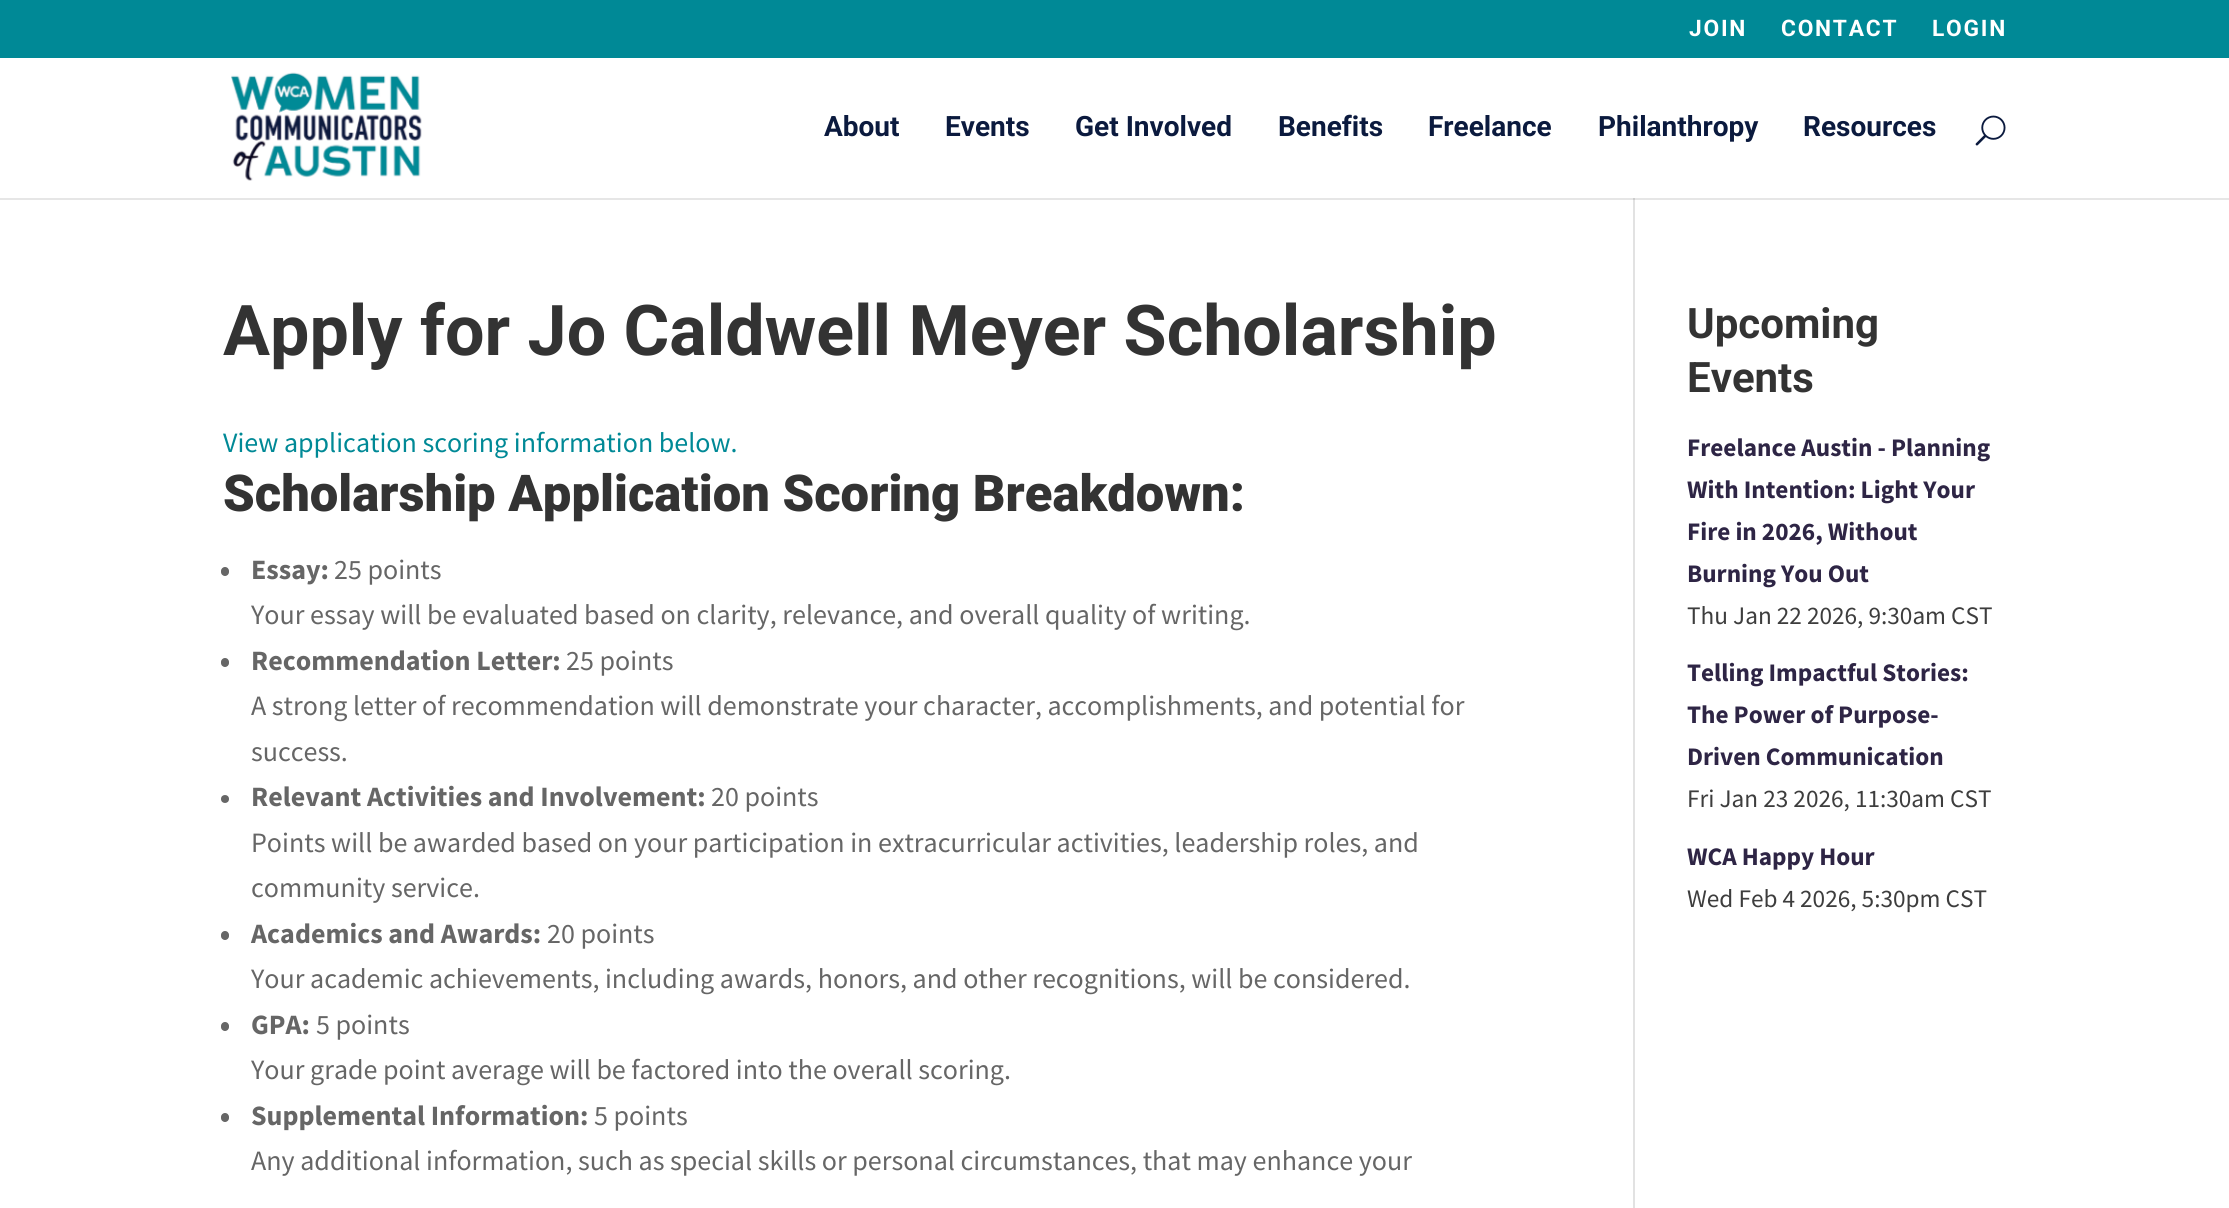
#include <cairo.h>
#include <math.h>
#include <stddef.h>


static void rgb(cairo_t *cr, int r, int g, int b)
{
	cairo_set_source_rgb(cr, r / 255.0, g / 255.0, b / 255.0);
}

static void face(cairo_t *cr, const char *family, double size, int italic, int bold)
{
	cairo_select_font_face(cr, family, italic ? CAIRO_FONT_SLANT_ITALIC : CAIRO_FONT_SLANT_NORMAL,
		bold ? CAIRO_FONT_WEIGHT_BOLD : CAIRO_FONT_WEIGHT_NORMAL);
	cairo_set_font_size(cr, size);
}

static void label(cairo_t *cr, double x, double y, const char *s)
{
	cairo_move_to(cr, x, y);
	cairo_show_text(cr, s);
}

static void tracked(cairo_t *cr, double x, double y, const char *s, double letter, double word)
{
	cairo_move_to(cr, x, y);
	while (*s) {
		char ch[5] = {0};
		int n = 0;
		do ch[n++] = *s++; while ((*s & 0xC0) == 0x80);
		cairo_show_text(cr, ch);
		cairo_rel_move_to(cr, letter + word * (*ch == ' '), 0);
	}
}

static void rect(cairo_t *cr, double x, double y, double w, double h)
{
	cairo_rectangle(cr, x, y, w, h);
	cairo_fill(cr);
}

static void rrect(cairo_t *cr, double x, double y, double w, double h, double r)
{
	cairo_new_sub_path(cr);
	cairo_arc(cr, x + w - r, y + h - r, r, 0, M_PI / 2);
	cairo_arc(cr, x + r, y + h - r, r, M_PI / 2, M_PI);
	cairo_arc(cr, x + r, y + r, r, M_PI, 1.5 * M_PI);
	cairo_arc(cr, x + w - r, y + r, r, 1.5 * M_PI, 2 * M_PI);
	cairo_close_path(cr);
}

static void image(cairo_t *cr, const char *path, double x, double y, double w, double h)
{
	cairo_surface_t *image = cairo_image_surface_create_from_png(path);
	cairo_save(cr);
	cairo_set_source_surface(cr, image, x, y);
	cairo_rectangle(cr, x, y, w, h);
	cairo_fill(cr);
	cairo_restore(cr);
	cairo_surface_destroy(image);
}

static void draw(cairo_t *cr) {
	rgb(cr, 0, 137, 150);
	cairo_paint(cr);
	face(cr, "Roboto", 22.75, 0, 1);
	rgb(cr, 255, 255, 255);
	tracked(cr, 1689, 36, "JOIN", 1.75, 0);
	tracked(cr, 1781, 36, "CONTACT", 1.75, 0);
	tracked(cr, 1932, 36, "LOGIN", 1.75, 0);
	rect(cr, 0, 198, 2229, 1010);
	rgb(cr, 226, 226, 226);
	rect(cr, 1633, 196, 2, 1012);
	cairo_set_source_rgba(cr, 0, 0, 0, 0.1);
	cairo_new_path(cr);
	cairo_move_to(cr, 0, 198);
	cairo_line_to(cr, 0, 200);
	cairo_line_to(cr, 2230, 200);
	cairo_line_to(cr, 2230, 60);
	cairo_line_to(cr, 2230, 198);
	cairo_close_path(cr);
	cairo_fill(cr);
	rgb(cr, 255, 255, 255);
	rect(cr, 0, 58, 2229, 140);
	image(cr, "image0.png", 231, 72, 191, 109);
	face(cr, "Roboto", 28, 0, 1);
	rgb(cr, 11, 26, 62);
	label(cr, 824, 136, "About");
	label(cr, 945, 136, "Events");
	label(cr, 1075, 136, "Get Involved");
	label(cr, 1278, 136, "Benefits");
	label(cr, 1428, 136, "Freelance");
	label(cr, 1598, 136, "Philanthropy");
	label(cr, 1803, 136, "Resources");
	image(cr, "image1.png", 1975, 115, 31, 31);
	face(cr, "Roboto", 70, 0, 1);
	rgb(cr, 51, 51, 51);
	label(cr, 223, 355, "Apply for Jo Caldwell Meyer Scholarship");
	face(cr, "Source Sans Pro", 28, 0, 0);
	rgb(cr, 0, 137, 150);
	label(cr, 223, 452, "View application scoring information below.");
	face(cr, "Roboto Black", 50.75, 0, 0);
	rgb(cr, 51, 51, 51);
	label(cr, 223, 511, "Scholarship Application Scoring Breakdown:");
	rgb(cr, 102, 102, 102);
	rrect(cr, 221, 567, 8, 9, 4);
	cairo_fill(cr);
	face(cr, "Source Sans Pro", 28, 0, 1);
	label(cr, 251, 579, "Essay:");
	face(cr, "Source Sans Pro", 28, 0, 0);
	label(cr, 334, 579, "25 points");
	label(cr, 251, 624, "Your essay will be evaluated based on clarity, relevance, and overall quality of writing.");
	rrect(cr, 221, 658, 8, 9, 4);
	cairo_fill(cr);
	face(cr, "Source Sans Pro", 28, 0, 1);
	label(cr, 251, 670, "Recommendation Letter:");
	face(cr, "Source Sans Pro", 28, 0, 0);
	label(cr, 566, 670, "25 points");
	label(cr, 251, 715, "A strong letter of recommendation will demonstrate your character, accomplishments, and potential for");
	label(cr, 251, 761, "success.");
	cairo_new_path(cr);
	cairo_arc(cr, 225, 799, 4, 0, 2 * M_PI);
	cairo_fill(cr);
	face(cr, "Source Sans Pro", 28, 0, 1);
	label(cr, 251, 806, "Relevant Activities and Involvement:");
	face(cr, "Source Sans Pro", 28, 0, 0);
	label(cr, 711, 806, "20 points");
	label(cr, 251, 852, "Points will be awarded based on your participation in extracurricular activities, leadership roles, and");
	label(cr, 251, 897, "community service.");
	rrect(cr, 221, 931, 8, 9, 4);
	cairo_fill(cr);
	face(cr, "Source Sans Pro", 28, 0, 1);
	label(cr, 251, 943, "Academics and Awards:");
	face(cr, "Source Sans Pro", 28, 0, 0);
	label(cr, 547, 943, "20 points");
	label(cr, 251, 988, "Your academic achievements, including awards, honors, and other recognitions, will be considered.");
	rrect(cr, 221, 1022, 8, 9, 4);
	cairo_fill(cr);
	face(cr, "Source Sans Pro", 28, 0, 1);
	label(cr, 251, 1034, "GPA:");
	face(cr, "Source Sans Pro", 28, 0, 0);
	label(cr, 316, 1034, "5 points");
	label(cr, 251, 1079, "Your grade point average will be factored into the overall scoring.");
	rrect(cr, 221, 1113, 8, 9, 4);
	cairo_fill(cr);
	face(cr, "Source Sans Pro", 28, 0, 1);
	label(cr, 251, 1125, "Supplemental Information:");
	face(cr, "Source Sans Pro", 28, 0, 0);
	label(cr, 594, 1125, "5 points");
	label(cr, 251, 1170, "Any additional information, such as special skills or personal circumstances, that may enhance your");
	face(cr, "Roboto", 42, 0, 1);
	rgb(cr, 51, 51, 51);
	label(cr, 1687, 338, "Upcoming");
	label(cr, 1687, 392, "Events");
	face(cr, "Source Sans Pro", 25.25, 0, 1);
	rgb(cr, 46, 37, 69);
	label(cr, 1687, 456, "Freelance Austin - Planning");
	label(cr, 1687, 498, "With Intention: Light Your");
	label(cr, 1687, 540, "Fire in 2026, Without");
	label(cr, 1687, 582, "Burning You Out");
	face(cr, "Source Sans Pro", 25.25, 0, 0);
	rgb(cr, 61, 61, 61);
	label(cr, 1687, 624, "Thu Jan 22 2026, 9:30am CST");
	face(cr, "Source Sans Pro", 25.25, 0, 1);
	rgb(cr, 46, 37, 69);
	label(cr, 1687, 681, "Telling Impactful Stories:");
	label(cr, 1687, 723, "The Power of Purpose-");
	label(cr, 1687, 765, "Driven Communication");
	face(cr, "Source Sans Pro", 25.25, 0, 0);
	rgb(cr, 61, 61, 61);
	label(cr, 1687, 807, "Fri Jan 23 2026, 11:30am CST");
	face(cr, "Source Sans Pro", 25.25, 0, 1);
	rgb(cr, 46, 37, 69);
	label(cr, 1687, 865, "WCA Happy Hour");
	face(cr, "Source Sans Pro", 25.25, 0, 0);
	rgb(cr, 61, 61, 61);
	label(cr, 1687, 907, "Wed Feb 4 2026, 5:30pm CST");
}

int main(void) {
	cairo_surface_t *surface = cairo_image_surface_create(CAIRO_FORMAT_RGB24, 2229, 1208);
	cairo_t *cr = cairo_create(surface);
	cairo_font_options_t *options = cairo_font_options_create();
	cairo_font_options_set_hint_metrics(options, CAIRO_HINT_METRICS_OFF);
	cairo_font_options_set_hint_style(options, CAIRO_HINT_STYLE_NONE);
	cairo_set_font_options(cr, options);
	cairo_set_miter_limit(cr, 4);
	draw(cr);
	cairo_surface_write_to_png(surface, "render.png");
	cairo_font_options_destroy(options);
	cairo_destroy(cr);
	cairo_surface_destroy(surface);
	return 0;
}
